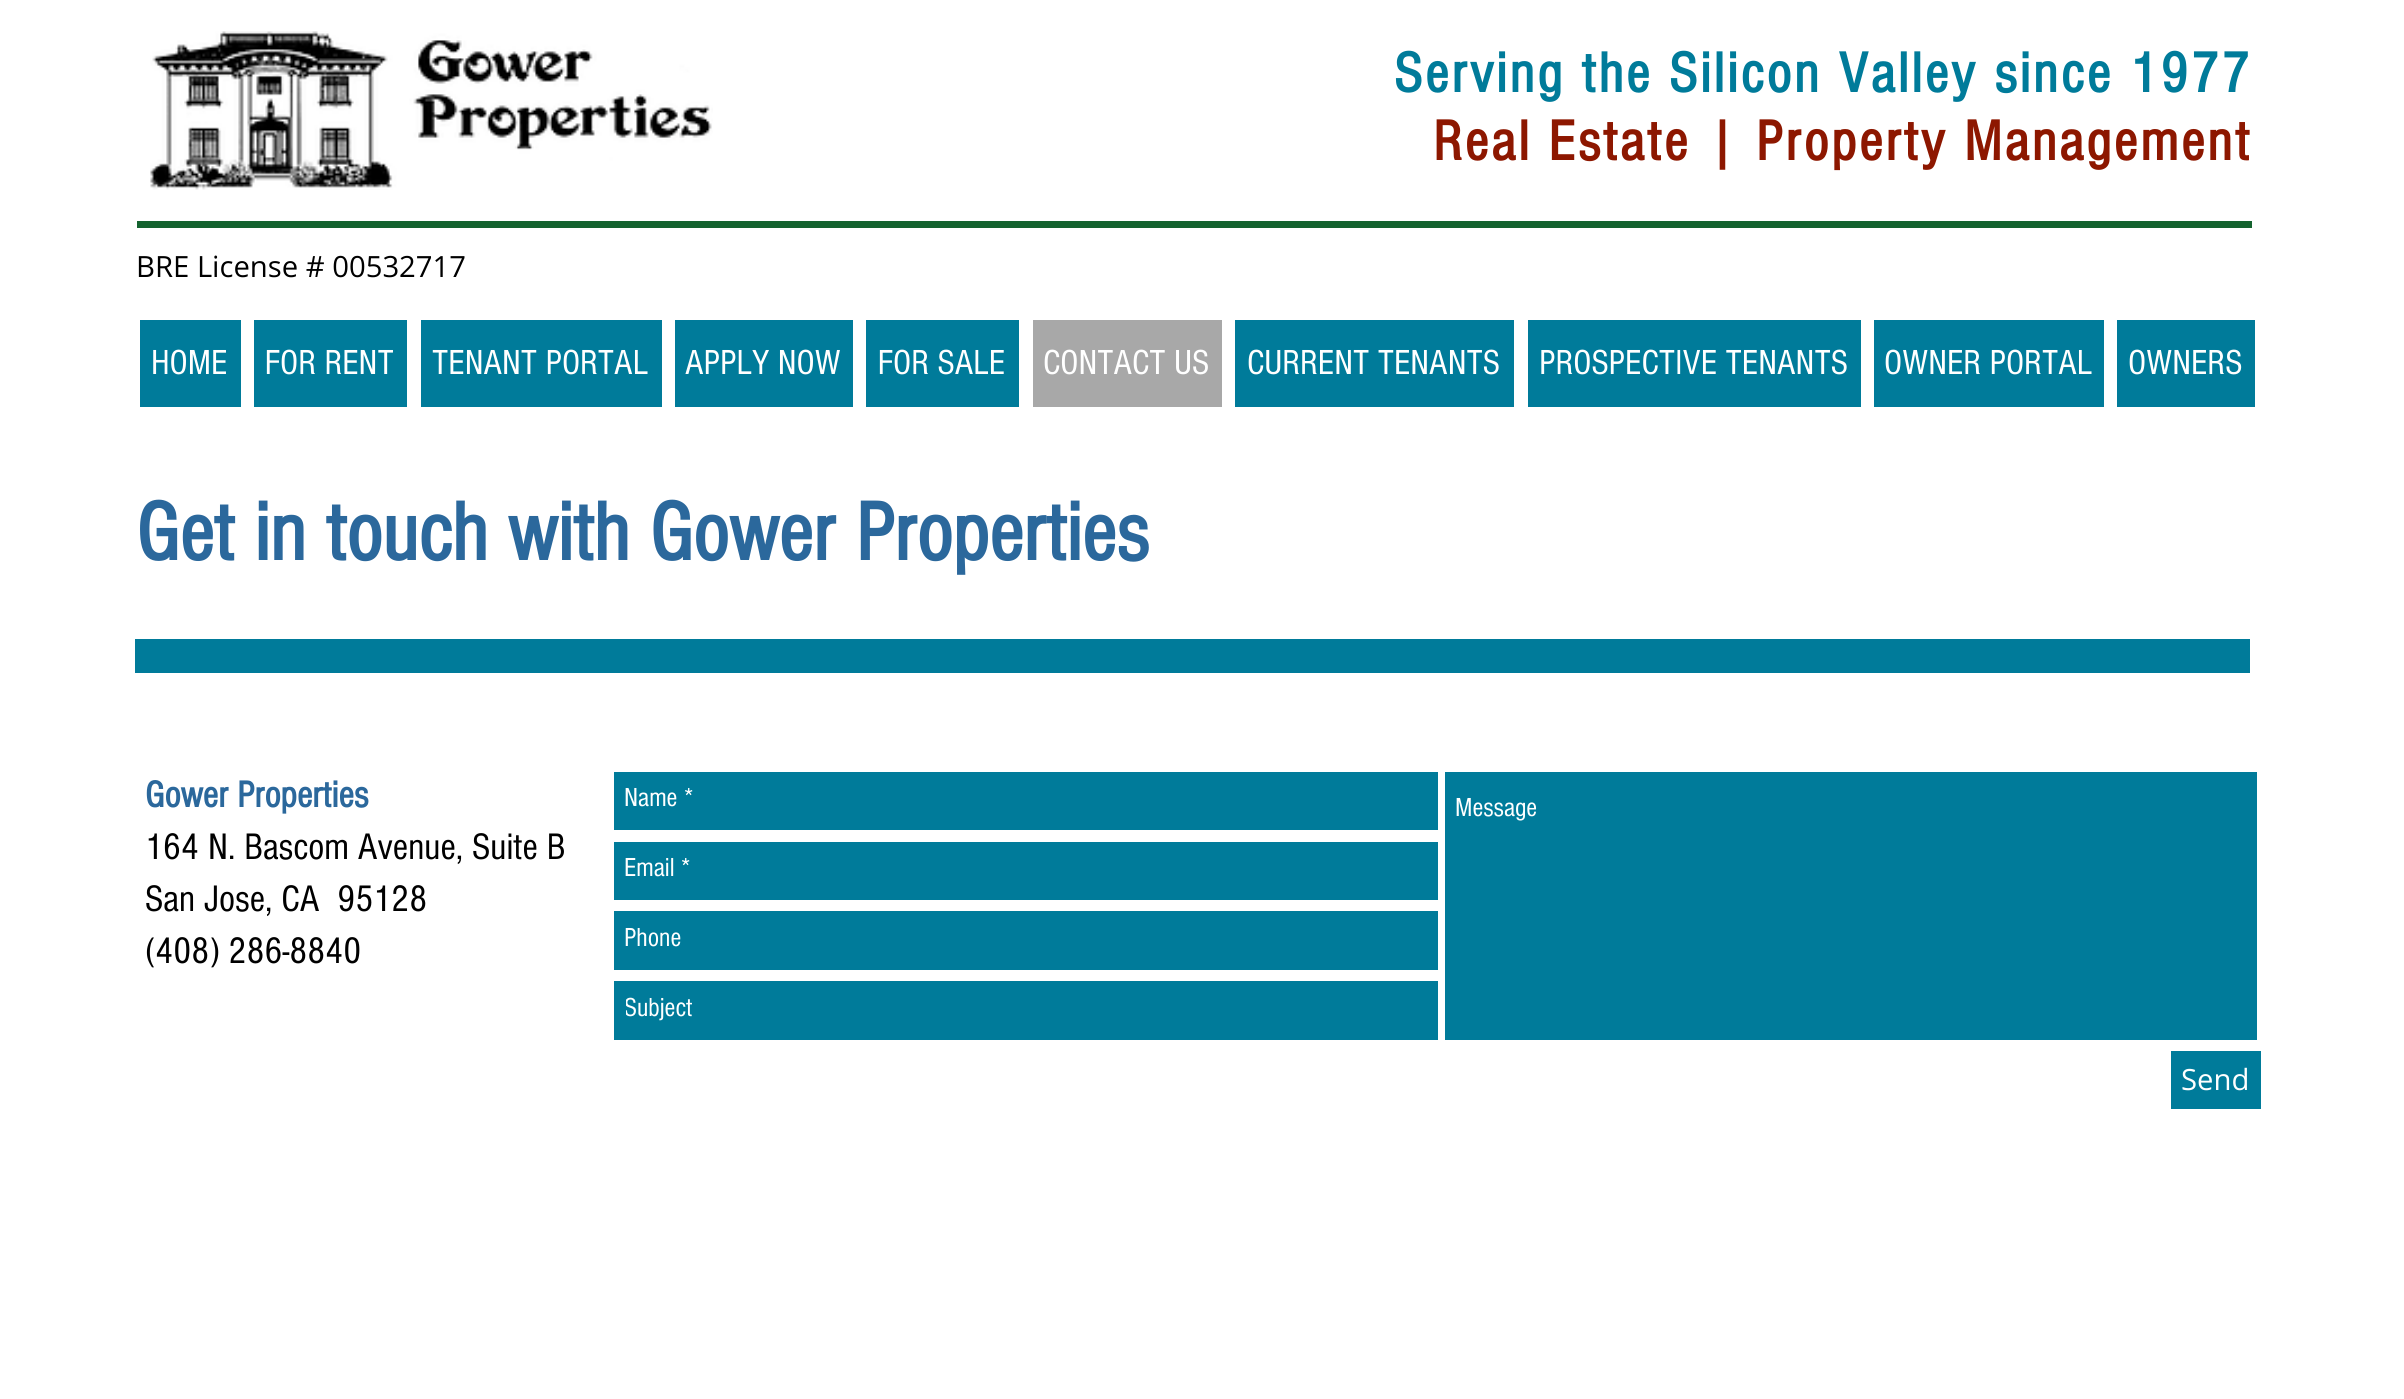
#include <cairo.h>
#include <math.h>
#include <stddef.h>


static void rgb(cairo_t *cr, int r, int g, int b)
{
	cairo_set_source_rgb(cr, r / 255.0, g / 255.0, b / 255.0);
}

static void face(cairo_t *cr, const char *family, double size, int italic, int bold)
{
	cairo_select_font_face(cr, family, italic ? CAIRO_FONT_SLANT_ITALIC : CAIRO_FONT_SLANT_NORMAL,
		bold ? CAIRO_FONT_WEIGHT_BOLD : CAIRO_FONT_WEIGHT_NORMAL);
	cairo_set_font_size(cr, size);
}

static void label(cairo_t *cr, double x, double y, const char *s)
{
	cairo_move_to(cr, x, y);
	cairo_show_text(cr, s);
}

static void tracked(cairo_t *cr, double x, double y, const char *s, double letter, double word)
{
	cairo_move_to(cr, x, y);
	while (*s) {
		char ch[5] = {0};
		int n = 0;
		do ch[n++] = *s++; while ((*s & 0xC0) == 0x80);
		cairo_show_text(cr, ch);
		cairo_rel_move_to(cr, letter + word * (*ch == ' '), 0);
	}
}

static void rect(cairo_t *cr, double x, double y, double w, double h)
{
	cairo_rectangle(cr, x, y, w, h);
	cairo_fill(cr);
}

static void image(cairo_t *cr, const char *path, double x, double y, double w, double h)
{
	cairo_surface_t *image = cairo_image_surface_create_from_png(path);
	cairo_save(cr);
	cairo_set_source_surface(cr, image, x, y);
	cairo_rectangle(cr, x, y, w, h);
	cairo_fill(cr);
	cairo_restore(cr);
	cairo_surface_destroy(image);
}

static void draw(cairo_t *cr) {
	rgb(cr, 255, 255, 255);
	cairo_paint(cr);
	image(cr, "image0.png", 150, 31, 563, 159);
	face(cr, "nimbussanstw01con", 58.5, 0, 1);
	rgb(cr, 0, 123, 154);
	tracked(cr, 1394, 92, "Serving the Silicon Valley since 1977", 2.95, 0);
	rgb(cr, 141, 23, 0);
	tracked(cr, 1433, 160, "Real Estate | Property Management", 2.95, 0);
	rgb(cr, 20, 99, 47);
	rect(cr, 137, 221, 2115, 7);
	face(cr, "Open Sans", 29.25, 0, 0);
	rgb(cr, 0, 0, 0);
	label(cr, 136, 277, "BRE License # 00532717");
	rgb(cr, 0, 123, 154);
	rect(cr, 140, 320, 101, 87);
	face(cr, "nimbussanstw01con", 36, 0, 0);
	rgb(cr, 255, 255, 255);
	label(cr, 151, 374, "HOME");
	rgb(cr, 0, 123, 154);
	rect(cr, 254, 320, 153, 87);
	rgb(cr, 255, 255, 255);
	label(cr, 265, 374, "FOR RENT");
	rgb(cr, 0, 123, 154);
	rect(cr, 421, 320, 241, 87);
	rgb(cr, 255, 255, 255);
	label(cr, 432, 374, "TENANT PORTAL");
	rgb(cr, 0, 123, 154);
	rect(cr, 675, 320, 178, 87);
	rgb(cr, 255, 255, 255);
	label(cr, 685, 374, "APPLY NOW");
	rgb(cr, 0, 123, 154);
	rect(cr, 866, 320, 153, 87);
	rgb(cr, 255, 255, 255);
	label(cr, 878, 374, "FOR SALE");
	rgb(cr, 168, 168, 168);
	rect(cr, 1033, 320, 189, 87);
	rgb(cr, 255, 255, 255);
	label(cr, 1043, 374, "CONTACT US");
	rgb(cr, 0, 123, 154);
	rect(cr, 1235, 320, 279, 87);
	rgb(cr, 255, 255, 255);
	label(cr, 1247, 374, "CURRENT TENANTS");
	rgb(cr, 0, 123, 154);
	rect(cr, 1528, 320, 333, 87);
	rgb(cr, 255, 255, 255);
	label(cr, 1539, 374, "PROSPECTIVE TENANTS");
	rgb(cr, 0, 123, 154);
	rect(cr, 1874, 320, 230, 87);
	rgb(cr, 255, 255, 255);
	label(cr, 1884, 374, "OWNER PORTAL");
	rgb(cr, 0, 123, 154);
	rect(cr, 2117, 320, 138, 87);
	rgb(cr, 255, 255, 255);
	label(cr, 2128, 374, "OWNERS");
	face(cr, "nimbussanstw01con", 85.5, 0, 1);
	rgb(cr, 43, 104, 156);
	label(cr, 136, 560, "Get in touch with Gower Properties");
	rgb(cr, 0, 123, 154);
	rect(cr, 135, 639, 2115, 34);
	face(cr, "nimbussanstw01con", 38.25, 0, 1);
	rgb(cr, 43, 104, 156);
	label(cr, 145, 807, "Gower Properties");
	face(cr, "nimbussanstw01con", 38.25, 0, 0);
	rgb(cr, 0, 0, 0);
	label(cr, 145, 859, "164 N. Bascom Avenue, Suite B");
	label(cr, 145, 911, "San Jose, CA  95128");
	label(cr, 145, 963, "(408) 286-8840");
	rgb(cr, 0, 123, 154);
	rect(cr, 614, 772, 824, 58);
	face(cr, "nimbussanstw01con", 27, 0, 0);
	rgb(cr, 255, 255, 255);
	label(cr, 624, 806, "Name *");
	rgb(cr, 0, 123, 154);
	rect(cr, 1445, 772, 812, 268);
	rgb(cr, 255, 255, 255);
	label(cr, 1455, 816, "Message");
	rgb(cr, 0, 123, 154);
	rect(cr, 614, 842, 824, 58);
	rgb(cr, 255, 255, 255);
	label(cr, 624, 876, "Email *");
	rgb(cr, 0, 123, 154);
	rect(cr, 614, 911, 824, 59);
	rgb(cr, 255, 255, 255);
	label(cr, 624, 946, "Phone");
	rgb(cr, 0, 123, 154);
	rect(cr, 614, 981, 824, 59);
	cairo_save(cr);
	cairo_rectangle(cr, 626, 992, 805, 30);
	cairo_clip(cr);
	rgb(cr, 255, 255, 255);
	label(cr, 624, 1016, "Subject");
	cairo_restore(cr);
	rect(cr, 2171, 1051, 90, 58);
	face(cr, "Open Sans", 29.25, 0, 0);
	rgb(cr, 255, 255, 255);
	label(cr, 2181, 1090, "Send");
}

int main(void) {
	cairo_surface_t *surface = cairo_image_surface_create(CAIRO_FORMAT_RGB24, 2404, 1399);
	cairo_t *cr = cairo_create(surface);
	cairo_font_options_t *options = cairo_font_options_create();
	cairo_font_options_set_hint_metrics(options, CAIRO_HINT_METRICS_OFF);
	cairo_font_options_set_hint_style(options, CAIRO_HINT_STYLE_NONE);
	cairo_set_font_options(cr, options);
	cairo_set_miter_limit(cr, 4);
	draw(cr);
	cairo_surface_write_to_png(surface, "render.png");
	cairo_font_options_destroy(options);
	cairo_destroy(cr);
	cairo_surface_destroy(surface);
	return 0;
}
